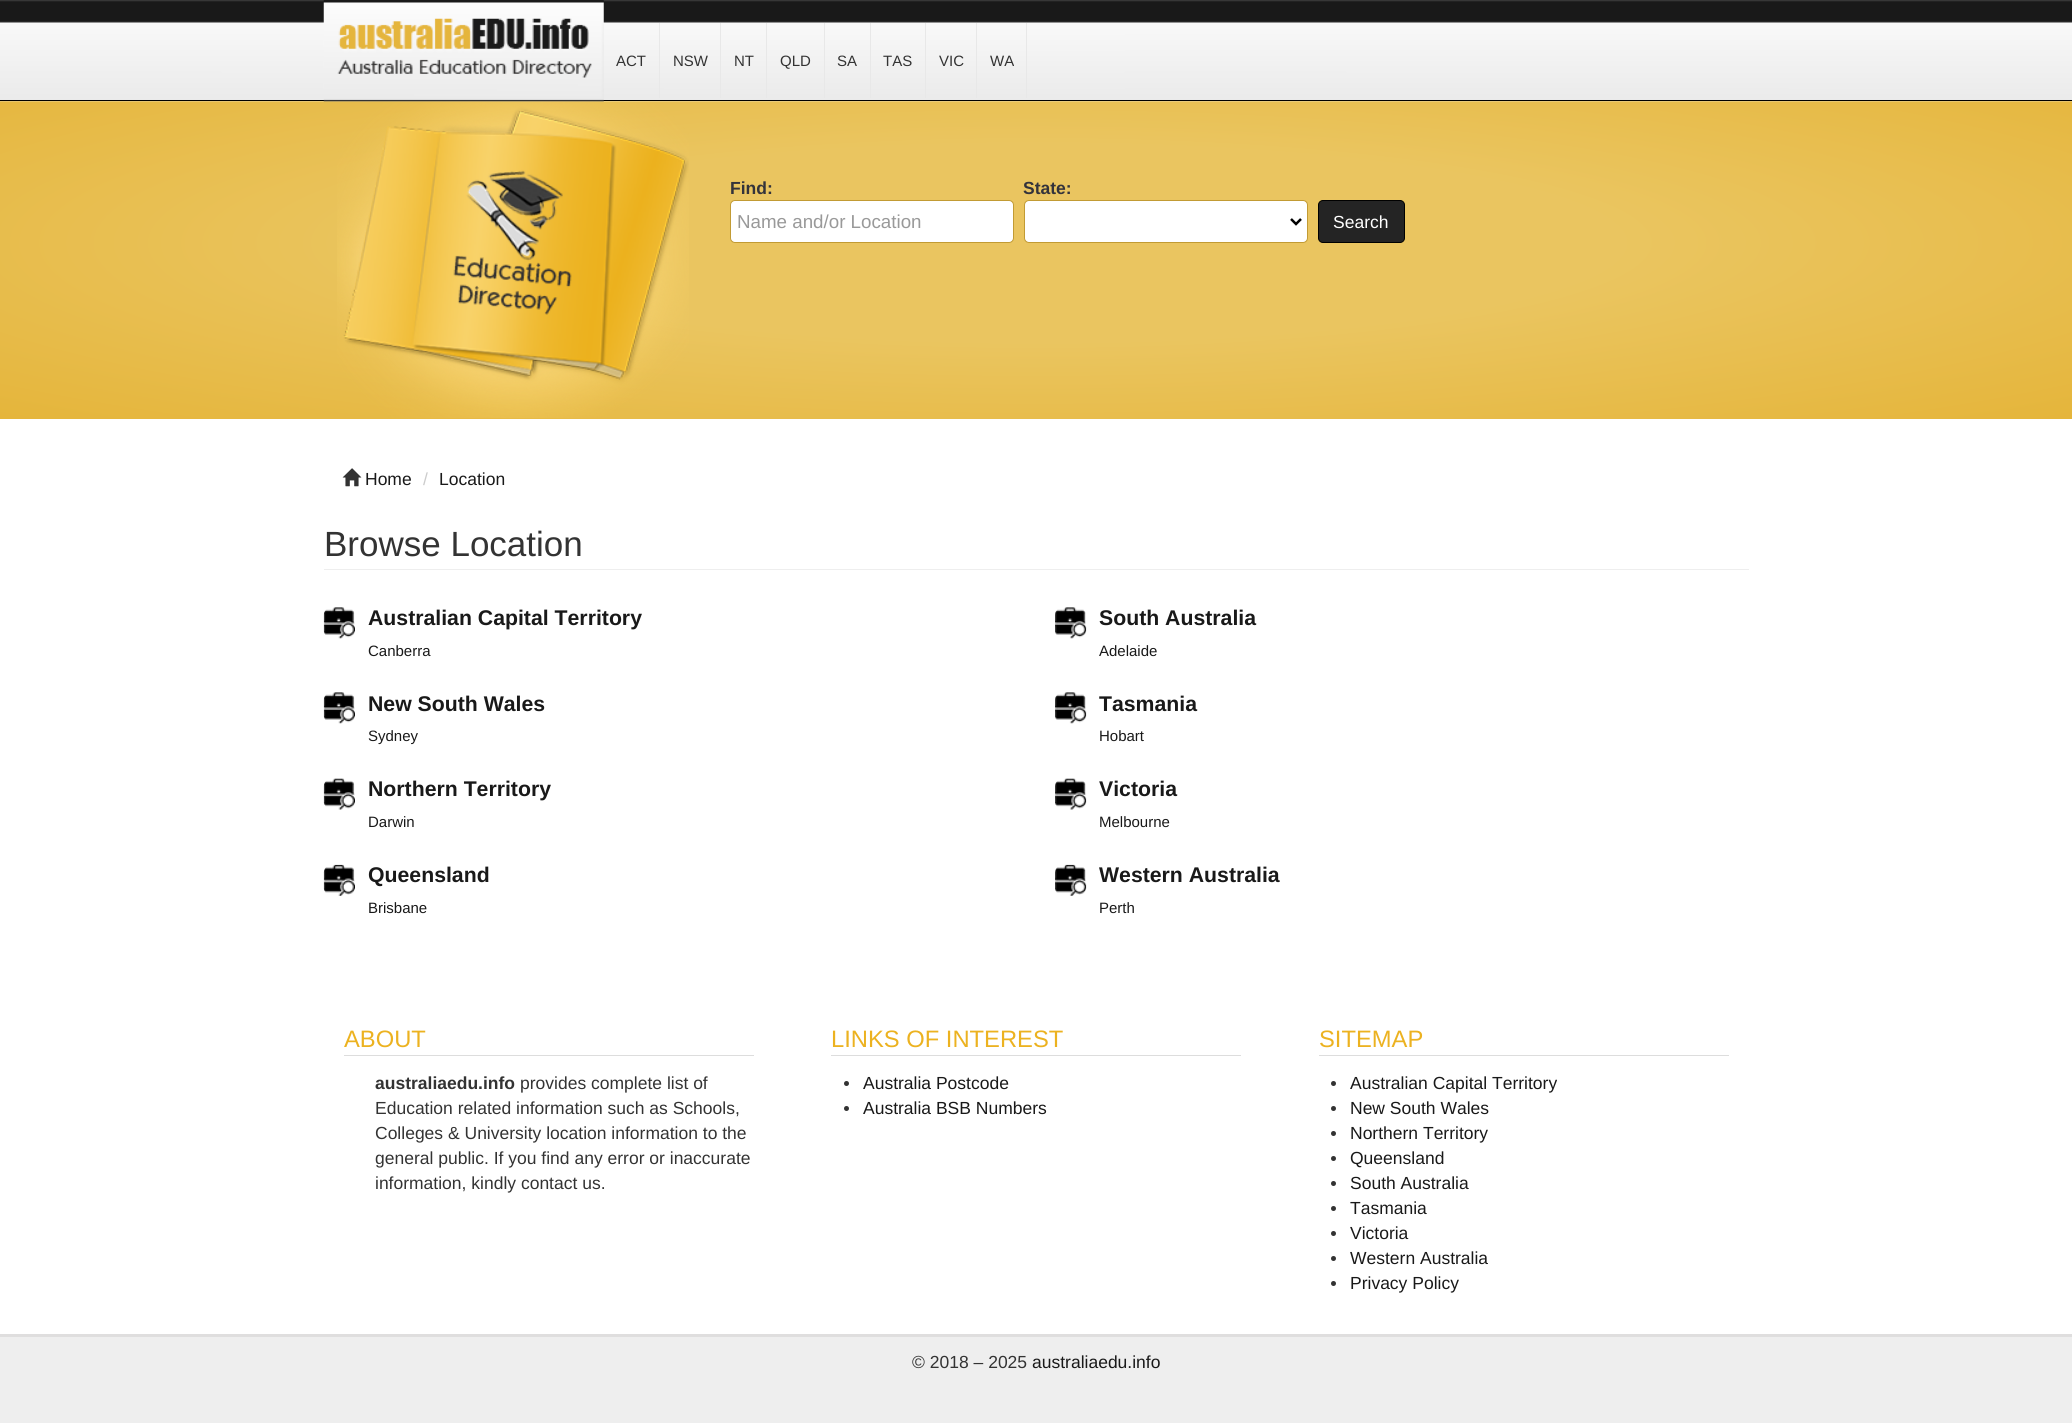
#include <cairo.h>
#include <math.h>
#include <stddef.h>


static void rgb(cairo_t *cr, int r, int g, int b)
{
	cairo_set_source_rgb(cr, r / 255.0, g / 255.0, b / 255.0);
}

static void face(cairo_t *cr, const char *family, double size, int italic, int bold)
{
	cairo_select_font_face(cr, family, italic ? CAIRO_FONT_SLANT_ITALIC : CAIRO_FONT_SLANT_NORMAL,
		bold ? CAIRO_FONT_WEIGHT_BOLD : CAIRO_FONT_WEIGHT_NORMAL);
	cairo_set_font_size(cr, size);
}

static void label(cairo_t *cr, double x, double y, const char *s)
{
	cairo_move_to(cr, x, y);
	cairo_show_text(cr, s);
}

static void rect(cairo_t *cr, double x, double y, double w, double h)
{
	cairo_rectangle(cr, x, y, w, h);
	cairo_fill(cr);
}

static void rrect(cairo_t *cr, double x, double y, double w, double h, double r)
{
	cairo_new_sub_path(cr);
	cairo_arc(cr, x + w - r, y + h - r, r, 0, M_PI / 2);
	cairo_arc(cr, x + r, y + h - r, r, M_PI / 2, M_PI);
	cairo_arc(cr, x + r, y + r, r, M_PI, 1.5 * M_PI);
	cairo_arc(cr, x + w - r, y + r, r, 1.5 * M_PI, 2 * M_PI);
	cairo_close_path(cr);
}

static void image(cairo_t *cr, const char *path, double x, double y, double w, double h)
{
	cairo_surface_t *image = cairo_image_surface_create_from_png(path);
	cairo_save(cr);
	cairo_set_source_surface(cr, image, x, y);
	cairo_rectangle(cr, x, y, w, h);
	cairo_fill(cr);
	cairo_restore(cr);
	cairo_surface_destroy(image);
}

static void draw(cairo_t *cr) {
	cairo_pattern_t *gradient;
	rgb(cr, 255, 255, 255);
	cairo_paint(cr);
	gradient = cairo_pattern_create_radial(0, 0, 0, 0, 0, 1);
	cairo_pattern_set_matrix(gradient, &(cairo_matrix_t){1.0 / 1465, 0, 0, 1.0 / 248, -1.0 * 1036 / 1465, -1.0 * 243 / 248});
	cairo_pattern_add_color_stop_rgba(gradient, 0.4, 0.918, 0.773, 0.376, 1);
	cairo_pattern_add_color_stop_rgba(gradient, 1, 0.898, 0.71, 0.231, 1);
	cairo_set_source(cr, gradient);
	cairo_pattern_destroy(gradient);
	rect(cr, 0, 101, 2072, 318);
	image(cr, "image2.png", 337, 101, 352, 317);
	image(cr, "image0.png", 0, 0, 2072, 102);
	rgb(cr, 0, 0, 0);
	rect(cr, 0, 100, 2072, 1);
	image(cr, "image1.png", 323, 0, 281, 102);
	rgb(cr, 232, 232, 232);
	rect(cr, 659, 23, 1, 75);
	face(cr, "Liberation Sans", 15, 0, 0);
	rgb(cr, 51, 51, 51);
	label(cr, 616, 66, "ACT");
	rgb(cr, 232, 232, 232);
	rect(cr, 720, 23, 1, 75);
	rgb(cr, 51, 51, 51);
	label(cr, 673, 66, "NSW");
	rgb(cr, 232, 232, 232);
	rect(cr, 766, 23, 1, 75);
	rgb(cr, 51, 51, 51);
	label(cr, 734, 66, "NT");
	rgb(cr, 232, 232, 232);
	rect(cr, 824, 23, 1, 75);
	rgb(cr, 51, 51, 51);
	label(cr, 780, 66, "QLD");
	rgb(cr, 232, 232, 232);
	rect(cr, 870, 23, 1, 75);
	rgb(cr, 51, 51, 51);
	label(cr, 837, 66, "SA");
	rgb(cr, 232, 232, 232);
	rect(cr, 925, 23, 1, 75);
	rgb(cr, 51, 51, 51);
	label(cr, 883, 66, "TAS");
	rgb(cr, 232, 232, 232);
	rect(cr, 976, 23, 1, 75);
	rgb(cr, 51, 51, 51);
	label(cr, 939, 66, "VIC");
	rgb(cr, 232, 232, 232);
	rect(cr, 1026, 23, 1, 75);
	rgb(cr, 51, 51, 51);
	label(cr, 990, 66, "WA");
	face(cr, "Liberation Sans", 17.5, 0, 1);
	rgb(cr, 51, 51, 59);
	label(cr, 730, 194, "Find:");
	rgb(cr, 255, 255, 255);
	rrect(cr, 730.5, 200.5, 283, 42, 4.5);
	cairo_fill_preserve(cr);
	rgb(cr, 194, 155, 52);
	cairo_set_line_width(cr, 1);
	cairo_stroke(cr);
	face(cr, "Liberation Sans", 18.75, 0, 0);
	rgb(cr, 153, 153, 153);
	label(cr, 737, 228, "Name and/or Location");
	face(cr, "Liberation Sans", 17.5, 0, 1);
	rgb(cr, 51, 51, 59);
	label(cr, 1023, 194, "State:");
	rgb(cr, 255, 255, 255);
	rrect(cr, 1024.5, 200.5, 283, 42, 4.5);
	cairo_fill_preserve(cr);
	rgb(cr, 194, 155, 52);
	cairo_stroke(cr);
	cairo_new_path(cr);
	cairo_move_to(cr, 1291, 219);
	cairo_line_to(cr, 1296, 224);
	cairo_line_to(cr, 1301, 219);
	rgb(cr, 0, 0, 0);
	cairo_set_line_width(cr, 2.5);
	cairo_stroke(cr);
	rgb(cr, 36, 36, 36);
	rrect(cr, 1318.5, 200.5, 86, 42, 4.5);
	cairo_fill_preserve(cr);
	rgb(cr, 0, 0, 0);
	cairo_set_line_width(cr, 1);
	cairo_stroke(cr);
	face(cr, "Liberation Sans", 17.5, 0, 0);
	rgb(cr, 255, 255, 255);
	label(cr, 1333, 228, "Search");
	image(cr, "image3.png", 342, 468, 20, 19);
	rgb(cr, 25, 25, 25);
	label(cr, 365, 485, "Home");
	rgb(cr, 204, 204, 204);
	label(cr, 423, 485, "/");
	rgb(cr, 25, 25, 25);
	label(cr, 439, 485, "Location");
	rgb(cr, 238, 238, 238);
	rect(cr, 324, 569, 1425, 1);
	face(cr, "Liberation Sans", 35, 0, 0);
	rgb(cr, 51, 51, 51);
	label(cr, 324, 556, "Browse Location");
	image(cr, "image4.png", 323, 607, 32, 32);
	face(cr, "Liberation Sans", 21.25, 0, 1);
	rgb(cr, 25, 25, 25);
	label(cr, 368, 625, "Australian Capital Territory");
	face(cr, "Liberation Sans", 15, 0, 0);
	label(cr, 368, 656, "Canberra");
	image(cr, "image4.png", 323, 692, 32, 32);
	face(cr, "Liberation Sans", 21.25, 0, 1);
	label(cr, 368, 711, "New South Wales");
	face(cr, "Liberation Sans", 15, 0, 0);
	label(cr, 368, 741, "Sydney");
	image(cr, "image5.png", 323, 778, 32, 32);
	face(cr, "Liberation Sans", 21.25, 0, 1);
	label(cr, 368, 796, "Northern Territory");
	face(cr, "Liberation Sans", 15, 0, 0);
	label(cr, 368, 827, "Darwin");
	image(cr, "image6.png", 323, 864, 32, 32);
	face(cr, "Liberation Sans", 21.25, 0, 1);
	label(cr, 368, 882, "Queensland");
	face(cr, "Liberation Sans", 15, 0, 0);
	label(cr, 368, 913, "Brisbane");
	image(cr, "image7.png", 1055, 607, 32, 32);
	face(cr, "Liberation Sans", 21.25, 0, 1);
	label(cr, 1099, 625, "South Australia");
	face(cr, "Liberation Sans", 15, 0, 0);
	label(cr, 1099, 656, "Adelaide");
	image(cr, "image7.png", 1055, 692, 32, 32);
	face(cr, "Liberation Sans", 21.25, 0, 1);
	label(cr, 1099, 711, "Tasmania");
	face(cr, "Liberation Sans", 15, 0, 0);
	label(cr, 1099, 741, "Hobart");
	image(cr, "image8.png", 1055, 778, 32, 32);
	face(cr, "Liberation Sans", 21.25, 0, 1);
	label(cr, 1099, 796, "Victoria");
	face(cr, "Liberation Sans", 15, 0, 0);
	label(cr, 1099, 827, "Melbourne");
	image(cr, "image9.png", 1055, 864, 32, 32);
	face(cr, "Liberation Sans", 21.25, 0, 1);
	label(cr, 1099, 882, "Western Australia");
	face(cr, "Liberation Sans", 15, 0, 0);
	label(cr, 1099, 913, "Perth");
	rgb(cr, 221, 221, 221);
	rect(cr, 344, 1055, 410, 1);
	face(cr, "Liberation Sans", 23.75, 0, 0);
	rgb(cr, 236, 178, 32);
	label(cr, 344, 1047, "ABOUT");
	face(cr, "Liberation Sans", 17.5, 0, 1);
	rgb(cr, 51, 51, 51);
	label(cr, 375, 1089, "australiaedu.info");
	face(cr, "Liberation Sans", 17.5, 0, 0);
	label(cr, 520, 1089, "provides complete list of");
	label(cr, 375, 1114, "Education related information such as Schools,");
	label(cr, 375, 1139, "Colleges & University location information to the");
	label(cr, 375, 1164, "general public. If you find any error or inaccurate");
	label(cr, 375, 1189, "information, kindly contact us.");
	rgb(cr, 221, 221, 221);
	rect(cr, 831, 1055, 410, 1);
	face(cr, "Liberation Sans", 23.75, 0, 0);
	rgb(cr, 236, 178, 32);
	label(cr, 831, 1047, "LINKS OF INTEREST");
	rgb(cr, 51, 51, 51);
	cairo_new_path(cr);
	cairo_arc(cr, 846.5, 1083.5, 2.5, 0, 2 * M_PI);
	cairo_fill(cr);
	face(cr, "Liberation Sans", 17.5, 0, 0);
	rgb(cr, 25, 25, 25);
	label(cr, 863, 1089, "Australia Postcode");
	rgb(cr, 51, 51, 51);
	cairo_new_path(cr);
	cairo_arc(cr, 846.5, 1108.5, 2.5, 0, 2 * M_PI);
	cairo_fill(cr);
	rgb(cr, 25, 25, 25);
	label(cr, 863, 1114, "Australia BSB Numbers");
	rgb(cr, 221, 221, 221);
	rect(cr, 1319, 1055, 410, 1);
	face(cr, "Liberation Sans", 23.75, 0, 0);
	rgb(cr, 236, 178, 32);
	label(cr, 1319, 1047, "SITEMAP");
	rgb(cr, 51, 51, 51);
	cairo_new_path(cr);
	cairo_arc(cr, 1333.5, 1083.5, 2.5, 0, 2 * M_PI);
	cairo_fill(cr);
	face(cr, "Liberation Sans", 17.5, 0, 0);
	rgb(cr, 25, 25, 25);
	label(cr, 1350, 1089, "Australian Capital Territory");
	rgb(cr, 51, 51, 51);
	cairo_new_path(cr);
	cairo_arc(cr, 1333.5, 1108.5, 2.5, 0, 2 * M_PI);
	cairo_fill(cr);
	rgb(cr, 25, 25, 25);
	label(cr, 1350, 1114, "New South Wales");
	rgb(cr, 51, 51, 51);
	cairo_new_path(cr);
	cairo_arc(cr, 1333.5, 1133.5, 2.5, 0, 2 * M_PI);
	cairo_fill(cr);
	rgb(cr, 25, 25, 25);
	label(cr, 1350, 1139, "Northern Territory");
	rgb(cr, 51, 51, 51);
	cairo_new_path(cr);
	cairo_arc(cr, 1333.5, 1158.5, 2.5, 0, 2 * M_PI);
	cairo_fill(cr);
	rgb(cr, 25, 25, 25);
	label(cr, 1350, 1164, "Queensland");
	rgb(cr, 51, 51, 51);
	cairo_new_path(cr);
	cairo_arc(cr, 1333.5, 1183.5, 2.5, 0, 2 * M_PI);
	cairo_fill(cr);
	rgb(cr, 25, 25, 25);
	label(cr, 1350, 1189, "South Australia");
	rgb(cr, 51, 51, 51);
	cairo_new_path(cr);
	cairo_arc(cr, 1333.5, 1208.5, 2.5, 0, 2 * M_PI);
	cairo_fill(cr);
	rgb(cr, 25, 25, 25);
	label(cr, 1350, 1214, "Tasmania");
	rgb(cr, 51, 51, 51);
	cairo_new_path(cr);
	cairo_arc(cr, 1333.5, 1233.5, 2.5, 0, 2 * M_PI);
	cairo_fill(cr);
	rgb(cr, 25, 25, 25);
	label(cr, 1350, 1239, "Victoria");
	rgb(cr, 51, 51, 51);
	cairo_new_path(cr);
	cairo_arc(cr, 1333.5, 1258.5, 2.5, 0, 2 * M_PI);
	cairo_fill(cr);
	rgb(cr, 25, 25, 25);
	label(cr, 1350, 1264, "Western Australia");
	rgb(cr, 51, 51, 51);
	cairo_new_path(cr);
	cairo_arc(cr, 1333.5, 1283.5, 2.5, 0, 2 * M_PI);
	cairo_fill(cr);
	rgb(cr, 25, 25, 25);
	label(cr, 1350, 1289, "Privacy Policy");
	rgb(cr, 238, 238, 238);
	rect(cr, 0, 1337, 2072, 86);
	rgb(cr, 223, 222, 222);
	rect(cr, 0, 1334, 2072, 3);
	rgb(cr, 51, 51, 51);
	label(cr, 912, 1368, "© 2018 – 2025");
	rgb(cr, 25, 25, 25);
	label(cr, 1032, 1368, "australiaedu.info");
}

int main(void) {
	cairo_surface_t *surface = cairo_image_surface_create(CAIRO_FORMAT_RGB24, 2072, 1423);
	cairo_t *cr = cairo_create(surface);
	cairo_font_options_t *options = cairo_font_options_create();
	cairo_font_options_set_hint_metrics(options, CAIRO_HINT_METRICS_OFF);
	cairo_font_options_set_hint_style(options, CAIRO_HINT_STYLE_NONE);
	cairo_set_font_options(cr, options);
	cairo_set_miter_limit(cr, 4);
	draw(cr);
	cairo_surface_write_to_png(surface, "render.png");
	cairo_font_options_destroy(options);
	cairo_destroy(cr);
	cairo_surface_destroy(surface);
	return 0;
}
